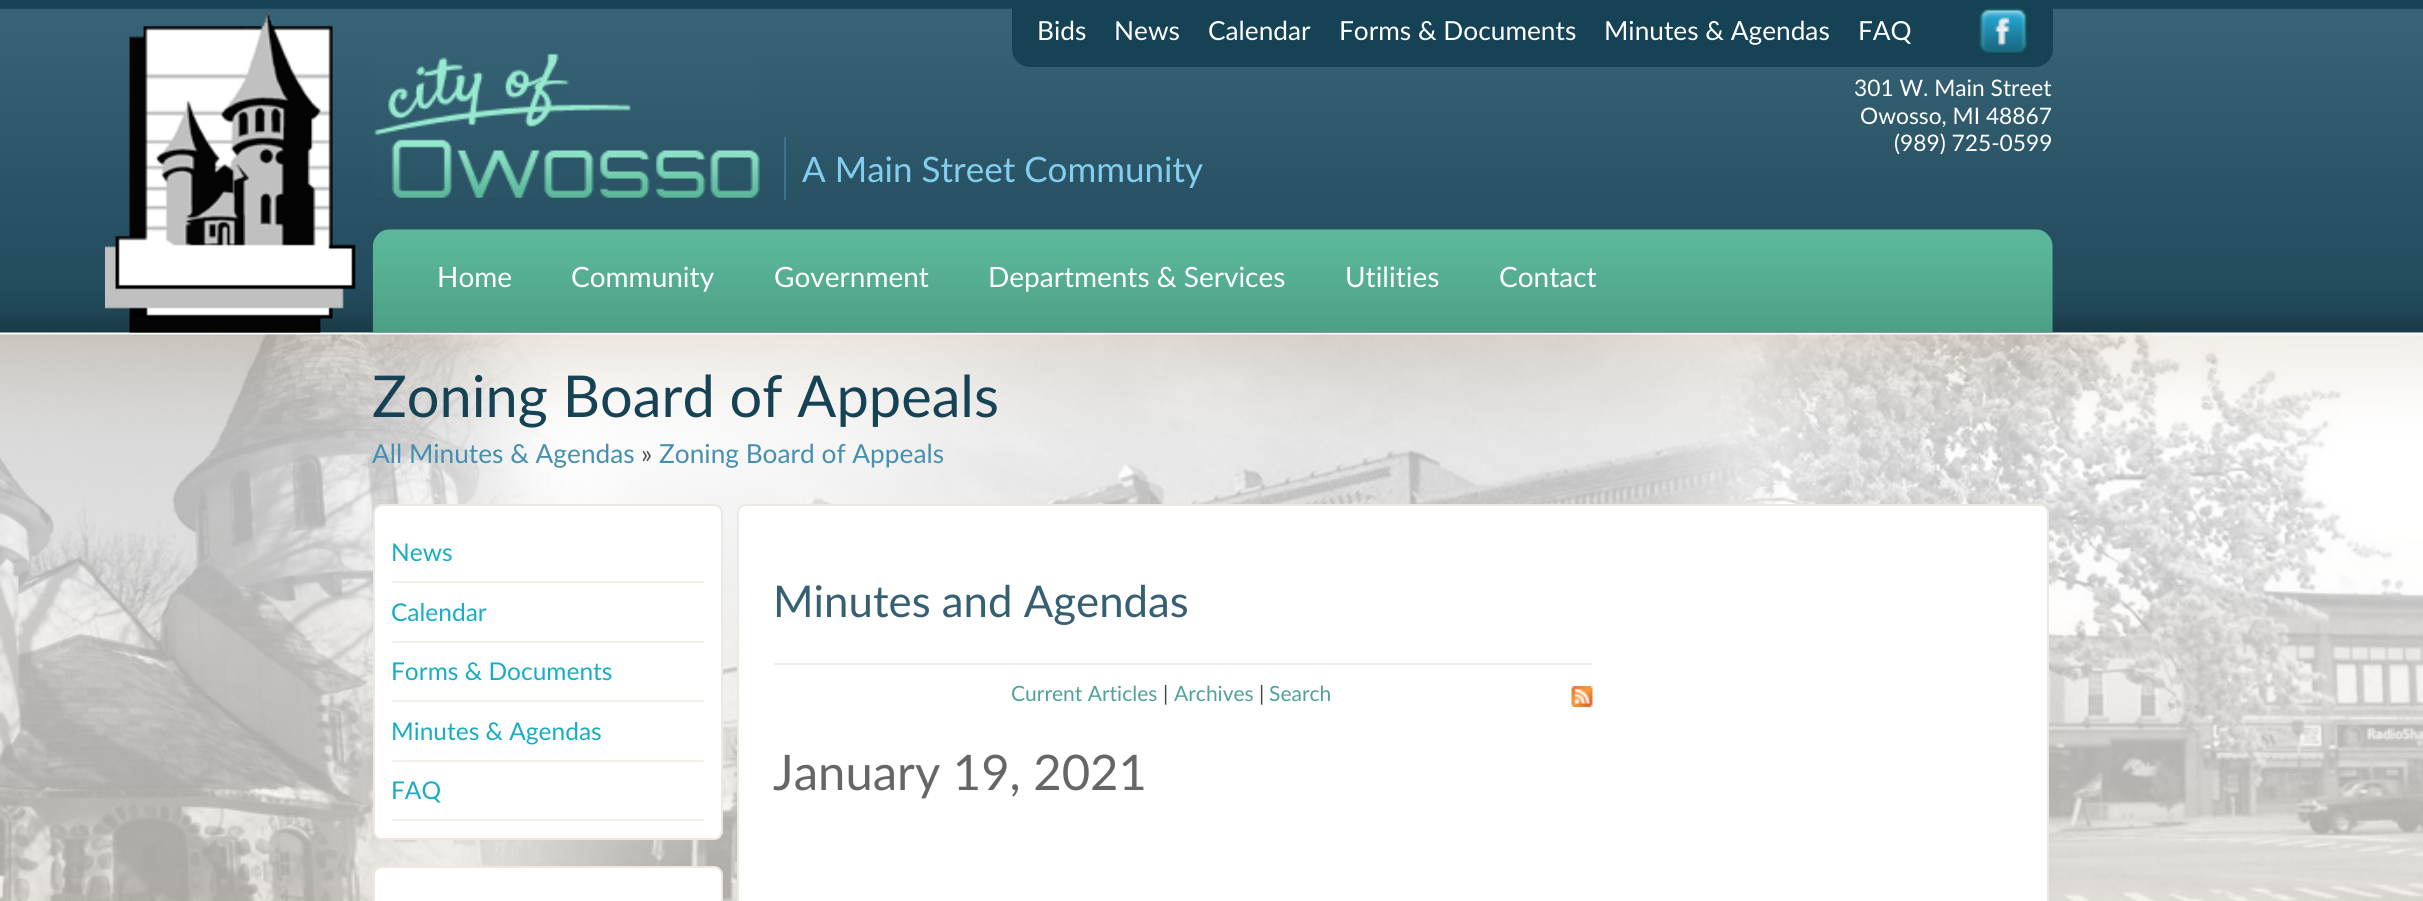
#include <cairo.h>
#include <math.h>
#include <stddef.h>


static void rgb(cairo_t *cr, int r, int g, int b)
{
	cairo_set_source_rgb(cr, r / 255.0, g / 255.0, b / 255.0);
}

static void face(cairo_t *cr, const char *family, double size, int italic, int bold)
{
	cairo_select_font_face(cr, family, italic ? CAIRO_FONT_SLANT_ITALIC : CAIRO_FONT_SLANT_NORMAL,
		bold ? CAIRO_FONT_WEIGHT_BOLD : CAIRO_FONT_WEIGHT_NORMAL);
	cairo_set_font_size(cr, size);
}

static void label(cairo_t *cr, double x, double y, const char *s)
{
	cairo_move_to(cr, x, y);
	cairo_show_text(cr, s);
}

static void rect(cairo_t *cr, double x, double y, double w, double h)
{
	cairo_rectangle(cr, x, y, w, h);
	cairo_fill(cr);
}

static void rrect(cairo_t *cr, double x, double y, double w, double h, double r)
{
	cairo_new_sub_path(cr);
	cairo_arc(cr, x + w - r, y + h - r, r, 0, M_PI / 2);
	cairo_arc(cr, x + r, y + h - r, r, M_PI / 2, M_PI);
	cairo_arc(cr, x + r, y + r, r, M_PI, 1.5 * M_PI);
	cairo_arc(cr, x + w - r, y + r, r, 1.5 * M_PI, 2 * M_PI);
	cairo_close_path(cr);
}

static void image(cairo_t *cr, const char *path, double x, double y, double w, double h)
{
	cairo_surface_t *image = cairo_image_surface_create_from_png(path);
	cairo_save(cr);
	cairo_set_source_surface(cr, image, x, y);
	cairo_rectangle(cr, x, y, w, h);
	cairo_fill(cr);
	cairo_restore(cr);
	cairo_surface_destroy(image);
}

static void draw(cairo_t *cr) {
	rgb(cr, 255, 255, 255);
	cairo_paint(cr);
	image(cr, "image5.png", 0, 334, 2423, 567);
	image(cr, "image0.png", 0, 0, 2423, 335);
	image(cr, "image1.png", 105, 10, 251, 323);
	image(cr, "image2.png", 374, 53, 386, 145);
	rgb(cr, 21, 66, 84);
	cairo_new_path(cr);
	cairo_move_to(cr, 1012, 0);
	cairo_line_to(cr, 2053, 0);
	cairo_line_to(cr, 2053, 49);
	cairo_curve_to(cr, 2053, 59, 2045, 67, 2035, 67);
	cairo_line_to(cr, 1030, 67);
	cairo_curve_to(cr, 1020, 67, 1012, 59, 1012, 49);
	cairo_close_path(cr);
	cairo_fill(cr);
	face(cr, "Lato", 26.25, 0, 0);
	rgb(cr, 255, 255, 255);
	label(cr, 1037, 40, "Bids");
	label(cr, 1114, 40, "News");
	label(cr, 1208, 40, "Calendar");
	label(cr, 1339, 40, "Forms & Documents");
	label(cr, 1604, 40, "Minutes & Agendas");
	label(cr, 1858, 40, "FAQ");
	image(cr, "image3.png", 1979, 8, 48, 45);
	face(cr, "Lato", 22.75, 0, 0);
	label(cr, 1854, 96, "301 W. Main Street");
	label(cr, 1860, 124, "Owosso, MI 48867");
	label(cr, 1894, 151, "(989) 725-0599");
	rgb(cr, 62, 115, 139);
	rect(cr, 784, 137, 2, 63);
	face(cr, "Lato", 35, 0, 0);
	rgb(cr, 131, 205, 238);
	label(cr, 802, 182, "A Main Street Community");
	image(cr, "image4.png", 372, 229, 1681, 104);
	face(cr, "Lato", 28, 0, 0);
	rgb(cr, 255, 255, 255);
	label(cr, 437, 287, "Home");
	label(cr, 571, 287, "Community");
	label(cr, 774, 287, "Government");
	label(cr, 988, 287, "Departments & Services");
	label(cr, 1345, 287, "Utilities");
	label(cr, 1499, 287, "Contact");
	face(cr, "Lato", 57.75, 0, 0);
	rgb(cr, 21, 66, 84);
	label(cr, 372, 417, "Zoning Board of Appeals");
	face(cr, "Lato", 26.25, 0, 0);
	rgb(cr, 69, 143, 175);
	label(cr, 372, 463, "All Minutes & Agendas");
	rgb(cr, 82, 83, 83);
	label(cr, 641, 463, "»");
	rgb(cr, 69, 143, 175);
	label(cr, 659, 463, "Zoning Board of Appeals");
	rgb(cr, 255, 255, 255);
	rrect(cr, 374, 505, 348, 334, 8);
	cairo_fill_preserve(cr);
	rgb(cr, 237, 232, 225);
	cairo_stroke(cr);
	rgb(cr, 244, 239, 233);
	rect(cr, 392, 581, 312, 2);
	face(cr, "Lato", 24.5, 0, 0);
	rgb(cr, 23, 173, 196);
	label(cr, 391, 561, "News");
	rgb(cr, 244, 239, 233);
	rect(cr, 392, 641, 312, 2);
	rgb(cr, 23, 173, 196);
	label(cr, 391, 621, "Calendar");
	rgb(cr, 244, 239, 233);
	rect(cr, 392, 700, 312, 2);
	rgb(cr, 23, 173, 196);
	label(cr, 391, 680, "Forms & Documents");
	rgb(cr, 244, 239, 233);
	rect(cr, 392, 760, 312, 2);
	rgb(cr, 23, 173, 196);
	label(cr, 391, 740, "Minutes & Agendas");
	rgb(cr, 244, 239, 233);
	rect(cr, 392, 819, 312, 2);
	rgb(cr, 23, 173, 196);
	label(cr, 391, 799, "FAQ");
	rgb(cr, 255, 255, 255);
	rrect(cr, 374, 867, 348, 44, 8);
	cairo_fill_preserve(cr);
	rgb(cr, 237, 232, 225);
	cairo_stroke(cr);
	rgb(cr, 255, 255, 255);
	rrect(cr, 738, 505, 1310, 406, 8);
	cairo_fill_preserve(cr);
	rgb(cr, 237, 232, 225);
	cairo_stroke(cr);
	rgb(cr, 244, 239, 233);
	rect(cr, 774, 663, 819, 2);
	face(cr, "Lato", 43.75, 0, 0);
	rgb(cr, 53, 96, 115);
	label(cr, 773, 617, "Minutes and Agendas");
	face(cr, "Lato", 21, 0, 0);
	rgb(cr, 78, 162, 155);
	label(cr, 1011, 701, "Current Articles");
	rgb(cr, 68, 68, 68);
	label(cr, 1163, 701, "|");
	rgb(cr, 78, 162, 155);
	label(cr, 1174, 701, "Archives");
	rgb(cr, 68, 68, 68);
	label(cr, 1259, 701, "|");
	rgb(cr, 78, 162, 155);
	label(cr, 1269, 701, "Search");
	image(cr, "image6.png", 1571, 686, 22, 21);
	face(cr, "Lato", 49, 0, 0);
	rgb(cr, 102, 102, 102);
	label(cr, 773, 790, "January 19, 2021");
}

int main(void) {
	cairo_surface_t *surface = cairo_image_surface_create(CAIRO_FORMAT_RGB24, 2423, 901);
	cairo_t *cr = cairo_create(surface);
	cairo_font_options_t *options = cairo_font_options_create();
	cairo_font_options_set_hint_metrics(options, CAIRO_HINT_METRICS_OFF);
	cairo_font_options_set_hint_style(options, CAIRO_HINT_STYLE_NONE);
	cairo_set_font_options(cr, options);
	cairo_set_miter_limit(cr, 4);
	draw(cr);
	cairo_surface_write_to_png(surface, "render.png");
	cairo_font_options_destroy(options);
	cairo_destroy(cr);
	cairo_surface_destroy(surface);
	return 0;
}
